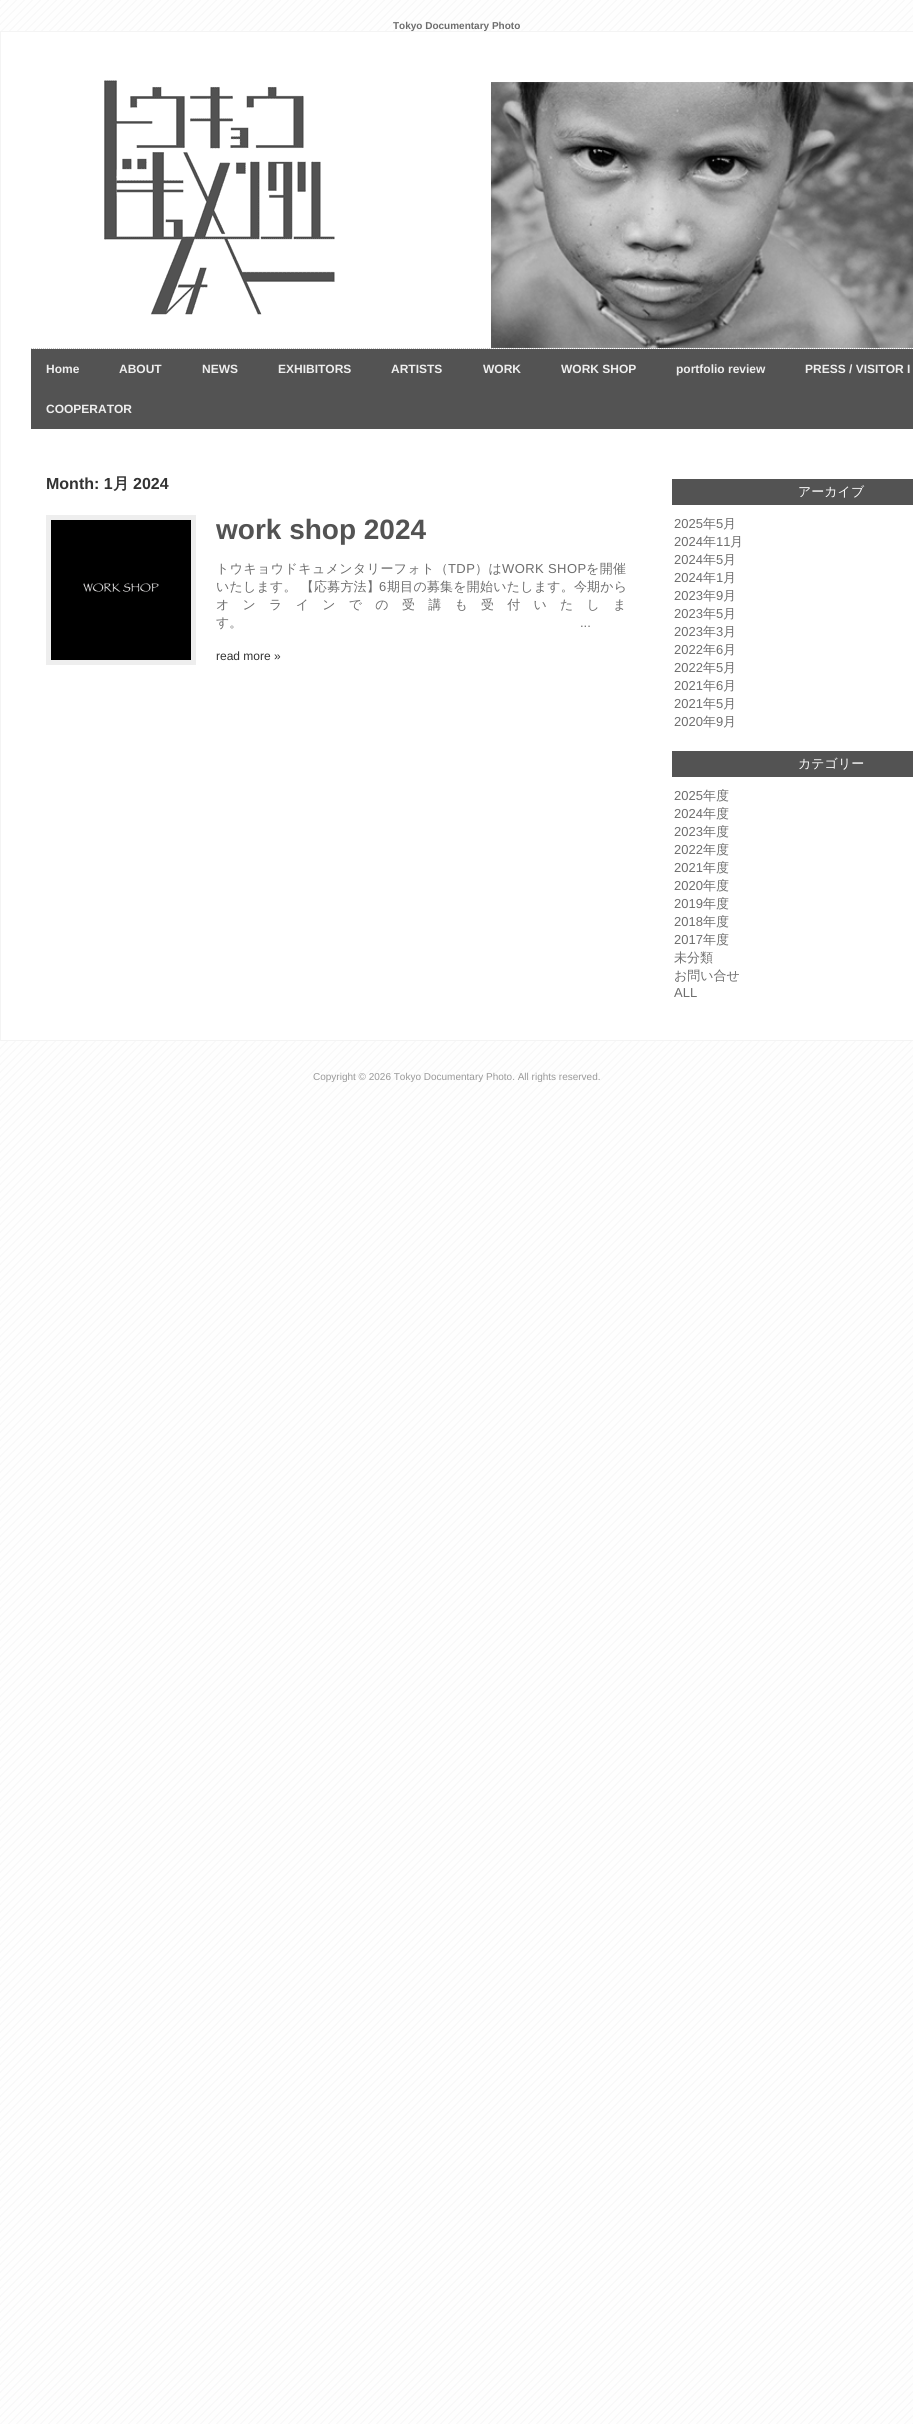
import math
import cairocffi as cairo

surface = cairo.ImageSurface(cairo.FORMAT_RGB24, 913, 2424)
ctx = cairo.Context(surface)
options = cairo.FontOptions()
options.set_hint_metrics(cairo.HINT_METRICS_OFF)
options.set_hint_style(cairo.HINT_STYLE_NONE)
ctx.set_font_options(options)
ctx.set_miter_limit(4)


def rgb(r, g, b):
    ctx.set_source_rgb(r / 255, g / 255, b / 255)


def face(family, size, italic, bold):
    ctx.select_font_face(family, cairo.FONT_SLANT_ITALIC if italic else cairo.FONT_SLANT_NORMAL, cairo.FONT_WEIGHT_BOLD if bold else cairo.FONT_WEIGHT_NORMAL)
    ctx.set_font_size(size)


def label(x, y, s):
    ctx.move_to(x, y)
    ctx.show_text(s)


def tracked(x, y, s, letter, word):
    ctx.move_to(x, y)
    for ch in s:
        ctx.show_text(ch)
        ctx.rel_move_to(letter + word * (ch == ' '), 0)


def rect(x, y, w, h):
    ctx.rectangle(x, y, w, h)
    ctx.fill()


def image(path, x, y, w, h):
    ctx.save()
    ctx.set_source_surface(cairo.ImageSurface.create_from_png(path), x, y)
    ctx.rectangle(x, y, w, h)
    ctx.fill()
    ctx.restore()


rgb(255, 255, 255)
ctx.paint()
image('image0.png', 0, 0, 913, 2424)
rgb(255, 255, 255)
ctx.rectangle(0.5, 31.5, 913, 1009)
ctx.fill_preserve()
rgb(244, 244, 244)
ctx.set_line_width(1)
ctx.stroke()
face('Liberation Sans', 10, 0, 1)
rgb(109, 109, 109)
label(393, 29, 'Tokyo Documentary Photo')
ctx.new_path()
ctx.move_to(31, 348.5)
ctx.line_to(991, 348.5)
rgb(199, 199, 199)
ctx.set_dash([1, 1])
ctx.stroke()
image('image1.png', 104, 80, 231, 235)
image('image2.png', 491, 82, 422, 266)
rgb(83, 83, 83)
rect(31, 349, 882, 80)
face('Liberation Sans', 12, 0, 1)
rgb(238, 238, 238)
label(46, 373, 'Home')
label(119, 373, 'ABOUT')
label(202, 373, 'NEWS')
label(278, 373, 'EXHIBITORS')
label(391, 373, 'ARTISTS')
label(483, 373, 'WORK')
label(561, 373, 'WORK SHOP')
label(676, 373, 'portfolio review')
label(805, 373, 'PRESS / VISITOR I')
label(46, 413, 'COOPERATOR')
face('Liberation Sans', 16, 0, 1)
rgb(51, 51, 51)
label(46, 489, 'Month: 1')
face('WenQuanYi Zen Hei', 16, 0, 1)
label(113, 489, '月')
face('Liberation Sans', 16, 0, 1)
label(133, 489, '2024')
rgb(238, 238, 238)
rect(46, 515, 150, 150)
image('image3.png', 51, 520, 140, 140)
face('Liberation Sans', 28, 0, 1)
rgb(83, 83, 83)
label(216, 539, 'work shop 2024')
face('WenQuanYi Zen Hei Medium', 13, 0, 0)
rgb(109, 109, 109)
tracked(216, 573, 'トウキョウドキュメンタリーフォト（', 0.4, 0)
face('Liberation Sans', 13, 0, 0)
tracked(448, 573, 'TDP', 0.4, 0)
face('WenQuanYi Zen Hei Medium', 13, 0, 0)
tracked(475, 573, '）は', 0.4, 0)
face('Liberation Sans', 13, 0, 0)
tracked(502, 573, 'WORK SHOP', 0.4, 0)
face('WenQuanYi Zen Hei Medium', 13, 0, 0)
tracked(586, 573, 'を開催', 0.4, 0)
tracked(216, 591, 'いたします。 【応募方法】', 0.2, 0)
face('Liberation Sans', 13, 0, 0)
tracked(379, 591, '6', 0.2, 0)
face('WenQuanYi Zen Hei Medium', 13, 0, 0)
tracked(387, 591, '期目の募集を開始いたします。今期から', 0.2, 0)
tracked(216, 609, 'オンラインでの受講も受付いたしま', 13.25, 0)
label(216, 627, 'す。')
face('Liberation Sans', 13, 0, 0)
label(580, 627, '...')
face('Liberation Sans', 12, 0, 0)
rgb(51, 51, 51)
label(216, 660, 'read more »')
rgb(83, 83, 83)
rect(672, 479, 241, 26)
face('WenQuanYi Zen Hei Medium', 13, 0, 0)
rgb(255, 255, 255)
label(798, 496, 'アーカイブ')
face('Liberation Sans', 13, 0, 0)
rgb(109, 109, 109)
label(674, 528, '2025')
face('WenQuanYi Zen Hei Medium', 13, 0, 0)
label(703, 528, '年')
face('Liberation Sans', 13, 0, 0)
label(716, 528, '5')
face('WenQuanYi Zen Hei Medium', 13, 0, 0)
label(723, 528, '月')
face('Liberation Sans', 13, 0, 0)
label(674, 546, '2024')
face('WenQuanYi Zen Hei Medium', 13, 0, 0)
label(703, 546, '年')
face('Liberation Sans', 13, 0, 0)
label(716, 546, '11')
face('WenQuanYi Zen Hei Medium', 13, 0, 0)
label(730, 546, '月')
face('Liberation Sans', 13, 0, 0)
label(674, 564, '2024')
face('WenQuanYi Zen Hei Medium', 13, 0, 0)
label(703, 564, '年')
face('Liberation Sans', 13, 0, 0)
label(716, 564, '5')
face('WenQuanYi Zen Hei Medium', 13, 0, 0)
label(723, 564, '月')
face('Liberation Sans', 13, 0, 0)
label(674, 582, '2024')
face('WenQuanYi Zen Hei Medium', 13, 0, 0)
label(703, 582, '年')
face('Liberation Sans', 13, 0, 0)
label(716, 582, '1')
face('WenQuanYi Zen Hei Medium', 13, 0, 0)
label(723, 582, '月')
face('Liberation Sans', 13, 0, 0)
label(674, 600, '2023')
face('WenQuanYi Zen Hei Medium', 13, 0, 0)
label(703, 600, '年')
face('Liberation Sans', 13, 0, 0)
label(716, 600, '9')
face('WenQuanYi Zen Hei Medium', 13, 0, 0)
label(723, 600, '月')
face('Liberation Sans', 13, 0, 0)
label(674, 618, '2023')
face('WenQuanYi Zen Hei Medium', 13, 0, 0)
label(703, 618, '年')
face('Liberation Sans', 13, 0, 0)
label(716, 618, '5')
face('WenQuanYi Zen Hei Medium', 13, 0, 0)
label(723, 618, '月')
face('Liberation Sans', 13, 0, 0)
label(674, 636, '2023')
face('WenQuanYi Zen Hei Medium', 13, 0, 0)
label(703, 636, '年')
face('Liberation Sans', 13, 0, 0)
label(716, 636, '3')
face('WenQuanYi Zen Hei Medium', 13, 0, 0)
label(723, 636, '月')
face('Liberation Sans', 13, 0, 0)
label(674, 654, '2022')
face('WenQuanYi Zen Hei Medium', 13, 0, 0)
label(703, 654, '年')
face('Liberation Sans', 13, 0, 0)
label(716, 654, '6')
face('WenQuanYi Zen Hei Medium', 13, 0, 0)
label(723, 654, '月')
face('Liberation Sans', 13, 0, 0)
label(674, 672, '2022')
face('WenQuanYi Zen Hei Medium', 13, 0, 0)
label(703, 672, '年')
face('Liberation Sans', 13, 0, 0)
label(716, 672, '5')
face('WenQuanYi Zen Hei Medium', 13, 0, 0)
label(723, 672, '月')
face('Liberation Sans', 13, 0, 0)
label(674, 690, '2021')
face('WenQuanYi Zen Hei Medium', 13, 0, 0)
label(703, 690, '年')
face('Liberation Sans', 13, 0, 0)
label(716, 690, '6')
face('WenQuanYi Zen Hei Medium', 13, 0, 0)
label(723, 690, '月')
face('Liberation Sans', 13, 0, 0)
label(674, 708, '2021')
face('WenQuanYi Zen Hei Medium', 13, 0, 0)
label(703, 708, '年')
face('Liberation Sans', 13, 0, 0)
label(716, 708, '5')
face('WenQuanYi Zen Hei Medium', 13, 0, 0)
label(723, 708, '月')
face('Liberation Sans', 13, 0, 0)
label(674, 726, '2020')
face('WenQuanYi Zen Hei Medium', 13, 0, 0)
label(703, 726, '年')
face('Liberation Sans', 13, 0, 0)
label(716, 726, '9')
face('WenQuanYi Zen Hei Medium', 13, 0, 0)
label(723, 726, '月')
rgb(83, 83, 83)
rect(672, 751, 241, 26)
rgb(255, 255, 255)
label(798, 768, 'カテゴリー')
face('Liberation Sans', 13, 0, 0)
rgb(109, 109, 109)
label(674, 800, '2025')
face('WenQuanYi Zen Hei Medium', 13, 0, 0)
label(703, 800, '年度')
face('Liberation Sans', 13, 0, 0)
label(674, 818, '2024')
face('WenQuanYi Zen Hei Medium', 13, 0, 0)
label(703, 818, '年度')
face('Liberation Sans', 13, 0, 0)
label(674, 836, '2023')
face('WenQuanYi Zen Hei Medium', 13, 0, 0)
label(703, 836, '年度')
face('Liberation Sans', 13, 0, 0)
label(674, 854, '2022')
face('WenQuanYi Zen Hei Medium', 13, 0, 0)
label(703, 854, '年度')
face('Liberation Sans', 13, 0, 0)
label(674, 872, '2021')
face('WenQuanYi Zen Hei Medium', 13, 0, 0)
label(703, 872, '年度')
face('Liberation Sans', 13, 0, 0)
label(674, 890, '2020')
face('WenQuanYi Zen Hei Medium', 13, 0, 0)
label(703, 890, '年度')
face('Liberation Sans', 13, 0, 0)
label(674, 908, '2019')
face('WenQuanYi Zen Hei Medium', 13, 0, 0)
label(703, 908, '年度')
face('Liberation Sans', 13, 0, 0)
label(674, 926, '2018')
face('WenQuanYi Zen Hei Medium', 13, 0, 0)
label(703, 926, '年度')
face('Liberation Sans', 13, 0, 0)
label(674, 944, '2017')
face('WenQuanYi Zen Hei Medium', 13, 0, 0)
label(703, 944, '年度')
label(674, 962, '未分類')
label(674, 980, 'お問い合せ')
face('Liberation Sans', 13, 0, 0)
label(674, 997, 'ALL')
face('Liberation Sans', 10, 0, 0)
rgb(153, 153, 153)
label(313, 1080, 'Copyright © 2026 Tokyo Documentary Photo. All rights reserved.')
surface.write_to_png('render.png')
